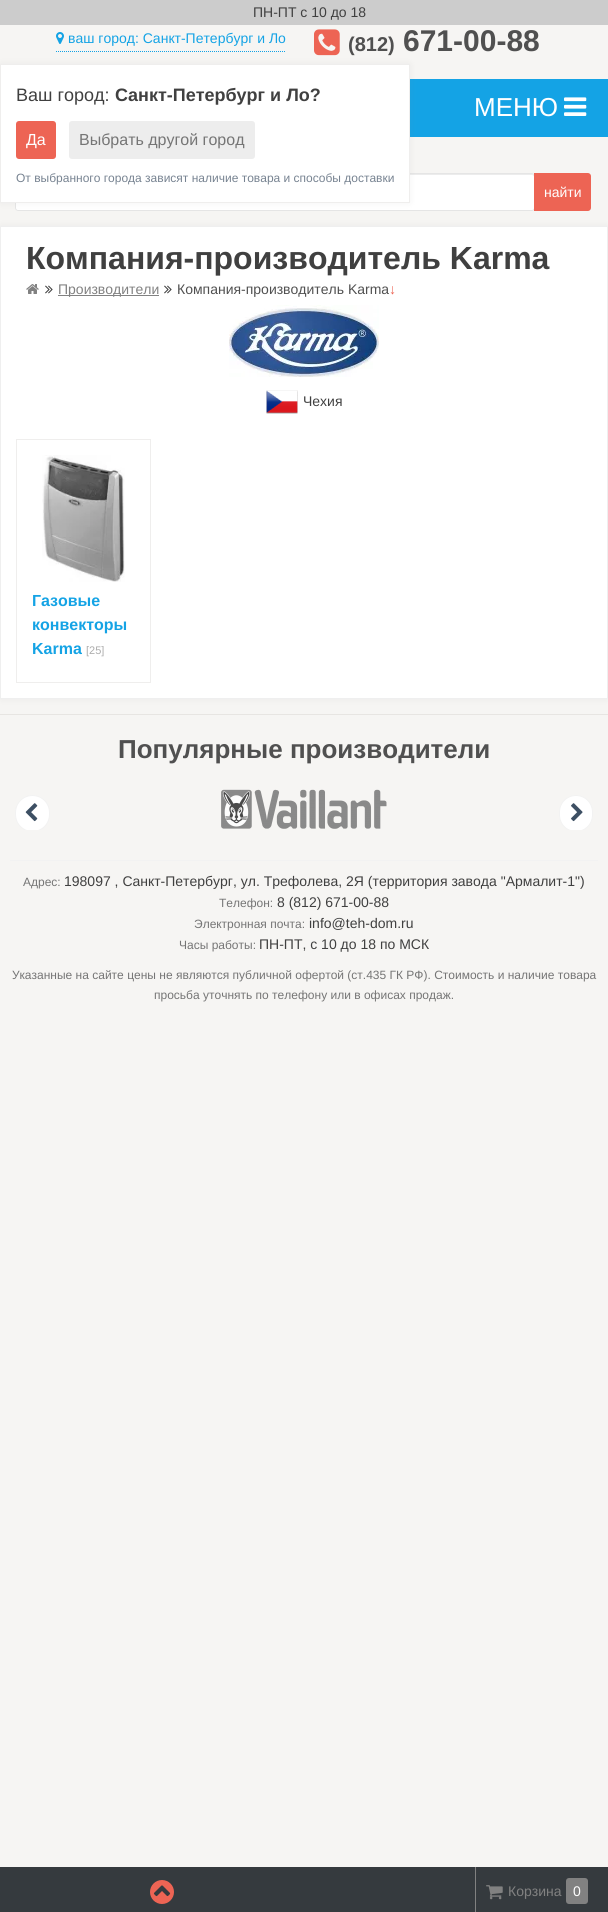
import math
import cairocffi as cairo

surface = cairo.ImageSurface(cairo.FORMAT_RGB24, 608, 1912)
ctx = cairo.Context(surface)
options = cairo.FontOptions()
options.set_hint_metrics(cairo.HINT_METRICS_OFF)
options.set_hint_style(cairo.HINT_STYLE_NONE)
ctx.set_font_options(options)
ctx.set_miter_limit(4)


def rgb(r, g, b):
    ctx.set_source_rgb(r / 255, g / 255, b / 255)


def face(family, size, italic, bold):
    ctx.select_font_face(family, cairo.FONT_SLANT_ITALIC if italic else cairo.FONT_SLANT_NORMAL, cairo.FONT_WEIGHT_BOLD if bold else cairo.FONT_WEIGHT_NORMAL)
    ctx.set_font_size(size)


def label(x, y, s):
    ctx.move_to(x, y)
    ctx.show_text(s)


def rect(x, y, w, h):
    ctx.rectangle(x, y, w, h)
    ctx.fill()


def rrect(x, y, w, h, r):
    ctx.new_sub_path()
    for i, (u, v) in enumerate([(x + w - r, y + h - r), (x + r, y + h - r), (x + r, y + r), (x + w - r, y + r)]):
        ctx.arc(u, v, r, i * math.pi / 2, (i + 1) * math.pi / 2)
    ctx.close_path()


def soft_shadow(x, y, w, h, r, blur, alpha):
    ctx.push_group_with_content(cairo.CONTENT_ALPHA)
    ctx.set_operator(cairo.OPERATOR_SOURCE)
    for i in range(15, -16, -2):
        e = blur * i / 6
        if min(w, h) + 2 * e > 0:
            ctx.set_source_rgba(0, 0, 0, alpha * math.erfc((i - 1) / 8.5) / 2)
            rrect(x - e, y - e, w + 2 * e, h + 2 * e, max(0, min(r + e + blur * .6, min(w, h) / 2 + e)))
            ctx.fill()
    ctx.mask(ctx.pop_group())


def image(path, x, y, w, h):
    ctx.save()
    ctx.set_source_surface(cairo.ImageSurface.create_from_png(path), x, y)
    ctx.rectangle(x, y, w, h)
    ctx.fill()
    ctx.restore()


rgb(246, 245, 243)
ctx.paint()
rgb(204, 204, 204)
rect(0, 0, 608, 25)
face('Liberation Sans', 14, 0, 0)
rgb(64, 64, 64)
label(253, 17, 'ПН-ПТ с 10 до 18')
ctx.new_path()
ctx.move_to(56, 51.5)
ctx.line_to(286, 51.5)
rgb(20, 163, 229)
ctx.set_line_width(1)
ctx.set_dash([1, 1])
ctx.stroke()
image('image0.png', 56, 32, 8, 12)
label(68, 43, 'ваш город: Санкт-Петербург и Ло')
image('image1.png', 314, 29, 26, 27)
face('Liberation Sans', 20, 0, 1)
rgb(80, 80, 80)
label(348, 51, '(812)')
face('Liberation Sans', 30, 0, 1)
label(403, 51, '671-00-88')
rgb(20, 163, 229)
rect(410, 79, 198, 58)
face('Liberation Sans', 26, 0, 0)
rgb(255, 255, 255)
label(474, 116, 'МЕНЮ')
image('image2.png', 564, 97, 23, 19)
rrect(15, 173, 520, 38, 3)
ctx.fill()
rgb(236, 236, 236)
ctx.new_path()
ctx.move_to(18, 175)
ctx.line_to(532, 175)
ctx.curve_to(533, 175, 534, 176, 534, 177)
ctx.curve_to(534, 176, 534, 174, 532, 174)
ctx.line_to(18, 174)
ctx.line_to(16, 175)
ctx.line_to(16, 177)
ctx.curve_to(16, 176, 17, 175, 18, 175)
ctx.close_path()
ctx.fill()
rrect(15.5, 173.5, 519, 37, 2.5)
rgb(229, 229, 229)
ctx.set_dash([])
ctx.stroke()
rgb(144, 144, 144)
soft_shadow(0, 64, 410, 139, 0, 3.5, 0.1)
rgb(255, 255, 255)
ctx.rectangle(0.5, 64.5, 409, 138)
ctx.fill_preserve()
rgb(239, 238, 237)
ctx.stroke()
face('Liberation Sans', 18, 0, 0)
rgb(64, 64, 64)
label(16, 101, 'Ваш город:')
face('Liberation Sans', 18, 0, 1)
label(115, 101, 'Санкт-Петербург и Ло?')
rgb(237, 100, 84)
rrect(16, 121, 40, 38, 3)
ctx.fill()
face('Liberation Sans', 16, 0, 0)
rgb(255, 255, 255)
label(26, 145, 'Да')
rgb(237, 237, 237)
rrect(69, 121, 186, 38, 3)
ctx.fill()
rgb(117, 117, 117)
label(79, 145, 'Выбрать другой город')
face('Liberation Sans', 12, 0, 0)
rgb(119, 131, 145)
label(16, 182, 'От выбранного города зависят наличие товара и способы доставки')
rgb(237, 100, 84)
ctx.new_path()
ctx.move_to(534, 173)
ctx.line_to(588, 173)
ctx.curve_to(589.5, 173, 591, 174.5, 591, 176)
ctx.line_to(591, 208)
ctx.curve_to(591, 209.5, 589.5, 211, 588, 211)
ctx.line_to(534, 211)
ctx.close_path()
ctx.fill()
face('Liberation Sans', 14, 0, 0)
rgb(255, 255, 255)
label(544, 197, 'найти')
rgb(144, 144, 144)
soft_shadow(0, 226, 608, 473, 0, 3.5, 0.1)
rgb(255, 255, 255)
ctx.rectangle(0.5, 226.5, 607, 472)
ctx.fill_preserve()
rgb(239, 239, 239)
ctx.stroke()
face('Liberation Sans', 32, 0, 1)
rgb(64, 64, 64)
label(26, 269, 'Компания-производитель Karma')
image('image3.png', 26, 284, 13, 10)
image('image4.png', 45, 285, 8, 9)
rgb(129, 129, 129)
rect(58, 295, 101, 1)
face('Liberation Sans', 14, 0, 0)
label(58, 294, 'Производители')
image('image4.png', 164, 285, 8, 9)
rgb(80, 80, 80)
label(177, 294, 'Компания-производитель Karma')
rgb(237, 100, 84)
label(389, 294, '↓')
image('image5.png', 229, 305, 150, 72)
image('image6.png', 266, 390, 32, 24)
rgb(64, 64, 64)
label(303, 406, 'Чехия')
ctx.rectangle(16.5, 439.5, 134, 243)
rgb(239, 238, 237)
ctx.stroke()
image('image7.png', 42, 455, 83, 127)
face('Liberation Sans', 16, 0, 1)
rgb(20, 163, 229)
label(32, 606, 'Газовые')
label(32, 630, 'конвекторы')
label(32, 654, 'Karma')
face('Liberation Sans', 11, 0, 0)
rgb(172, 172, 172)
label(86, 654, '[25]')
rgb(231, 229, 226)
rect(0, 714, 608, 1)
face('Liberation Sans', 26, 0, 1)
rgb(80, 80, 80)
label(118, 758, 'Популярные производители')
image('image8.png', 221, 789, 166, 40)
ctx.save()
ctx.rectangle(0, 730, 608, 100)
ctx.clip()
rgb(255, 255, 255)
rrect(15.5, 795.5, 34, 36, 17)
ctx.fill_preserve()
rgb(242, 242, 242)
ctx.stroke()
ctx.restore()
image('image9.png', 25, 803, 13, 19)
ctx.save()
ctx.rectangle(0, 730, 608, 100)
ctx.clip()
rgb(255, 255, 255)
rrect(559.5, 795.5, 33, 36, 16.5)
ctx.fill_preserve()
rgb(242, 242, 242)
ctx.stroke()
ctx.restore()
image('image10.png', 571, 803, 12, 19)
rgb(242, 242, 242)
rect(10, 860, 588, 1)
face('Liberation Sans', 12, 0, 0)
rgb(117, 117, 117)
label(23, 886, 'Адрес:')
face('Liberation Sans', 14, 0, 0)
rgb(64, 64, 64)
label(64, 886, '198097 , Санкт-Петербург, ул. Трефолева, 2Я (территория завода "Армалит-1")')
face('Liberation Sans', 12, 0, 0)
rgb(117, 117, 117)
label(219, 907, 'Телефон:')
face('Liberation Sans', 14, 0, 0)
rgb(64, 64, 64)
label(277, 907, '8 (812) 671-00-88')
face('Liberation Sans', 12, 0, 0)
rgb(117, 117, 117)
label(194, 928, 'Электронная почта:')
face('Liberation Sans', 14, 0, 0)
rgb(64, 64, 64)
label(309, 928, 'info@teh-dom.ru')
face('Liberation Sans', 12, 0, 0)
rgb(117, 117, 117)
label(179, 949, 'Часы работы:')
face('Liberation Sans', 14, 0, 0)
rgb(64, 64, 64)
label(259, 949, 'ПН-ПТ, с 10 до 18 по МСК')
face('Liberation Sans', 12, 0, 0)
rgb(117, 117, 117)
label(12, 979, 'Указанные на сайте цены не являются публичной офертой (ст.435 ГК РФ). Стоимость и наличие товара')
label(154, 999, 'просьба уточнять по телефону или в офисах продаж.')
rgb(53, 58, 62)
rect(0, 1867, 608, 45)
image('image11.png', 150, 1880, 24, 24)
rgb(129, 129, 129)
rect(475, 1867, 1, 45)
image('image12.png', 486, 1885, 17, 15)
face('Liberation Sans', 14, 0, 0)
label(508, 1896, 'Корзина')
rrect(566, 1878, 22, 26, 3)
ctx.fill()
rgb(255, 255, 255)
label(573, 1896, '0')
surface.write_to_png('render.png')
